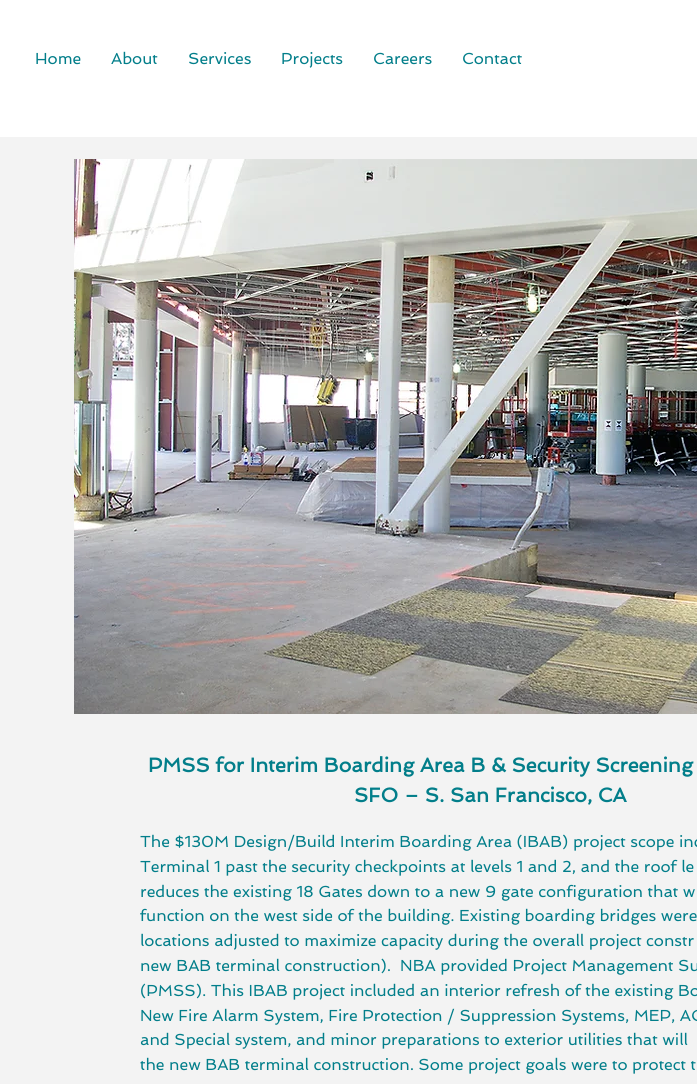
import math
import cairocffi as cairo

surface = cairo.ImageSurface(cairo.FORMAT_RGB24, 697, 1084)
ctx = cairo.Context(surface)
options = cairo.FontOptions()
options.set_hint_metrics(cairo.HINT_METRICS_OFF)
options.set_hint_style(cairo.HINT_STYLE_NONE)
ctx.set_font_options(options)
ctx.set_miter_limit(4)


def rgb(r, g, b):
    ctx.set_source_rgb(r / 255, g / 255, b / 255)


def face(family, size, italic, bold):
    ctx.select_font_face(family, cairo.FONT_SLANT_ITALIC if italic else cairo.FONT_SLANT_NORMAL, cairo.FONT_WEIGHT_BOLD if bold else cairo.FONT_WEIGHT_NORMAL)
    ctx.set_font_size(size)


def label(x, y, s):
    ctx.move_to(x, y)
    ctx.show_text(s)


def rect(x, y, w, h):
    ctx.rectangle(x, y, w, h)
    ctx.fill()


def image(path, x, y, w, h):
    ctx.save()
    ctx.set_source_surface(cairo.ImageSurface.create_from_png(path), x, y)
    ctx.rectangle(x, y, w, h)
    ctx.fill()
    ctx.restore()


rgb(255, 255, 255)
ctx.paint()
face('Spinnaker', 16, 0, 0)
rgb(2, 126, 138)
label(35, 64, 'Home')
label(111, 64, 'About')
label(188, 64, 'Services')
label(281, 64, 'Projects')
label(373, 64, 'Careers')
label(462, 64, 'Contact')
rgb(243, 243, 243)
rect(0, 137, 697, 947)
image('image0.png', 74, 159, 623, 555)
face('Spinnaker', 20, 0, 1)
rgb(2, 126, 138)
label(148, 772, 'PMSS for Interim Boarding Area B & Security Screening')
label(354, 802, 'SFO – S. San Francisco, CA')
face('Spinnaker', 16, 0, 0)
label(140, 847, 'The $130M Design/Build Interim Boarding Area (IBAB) project scope inc')
label(140, 872, 'Terminal 1 past the security checkpoints at levels 1 and 2, and the roof le')
label(140, 897, 'reduces the existing 18 Gates down to a new 9 gate configuration that w')
label(140, 921, 'function on the west side of the building. Existing boarding bridges were')
label(140, 946, 'locations adjusted to maximize capacity during the overall project constr')
label(140, 971, 'new BAB terminal construction).  NBA provided Project Management Su')
label(140, 996, '(PMSS). This IBAB project included an interior refresh of the existing Bo')
label(140, 1021, 'New Fire Alarm System, Fire Protection / Suppression Systems, MEP, AC')
label(140, 1045, 'and Special system, and minor preparations to exterior utilities that will')
label(140, 1070, 'the new BAB terminal construction. Some project goals were to protect t')
surface.write_to_png('render.png')
